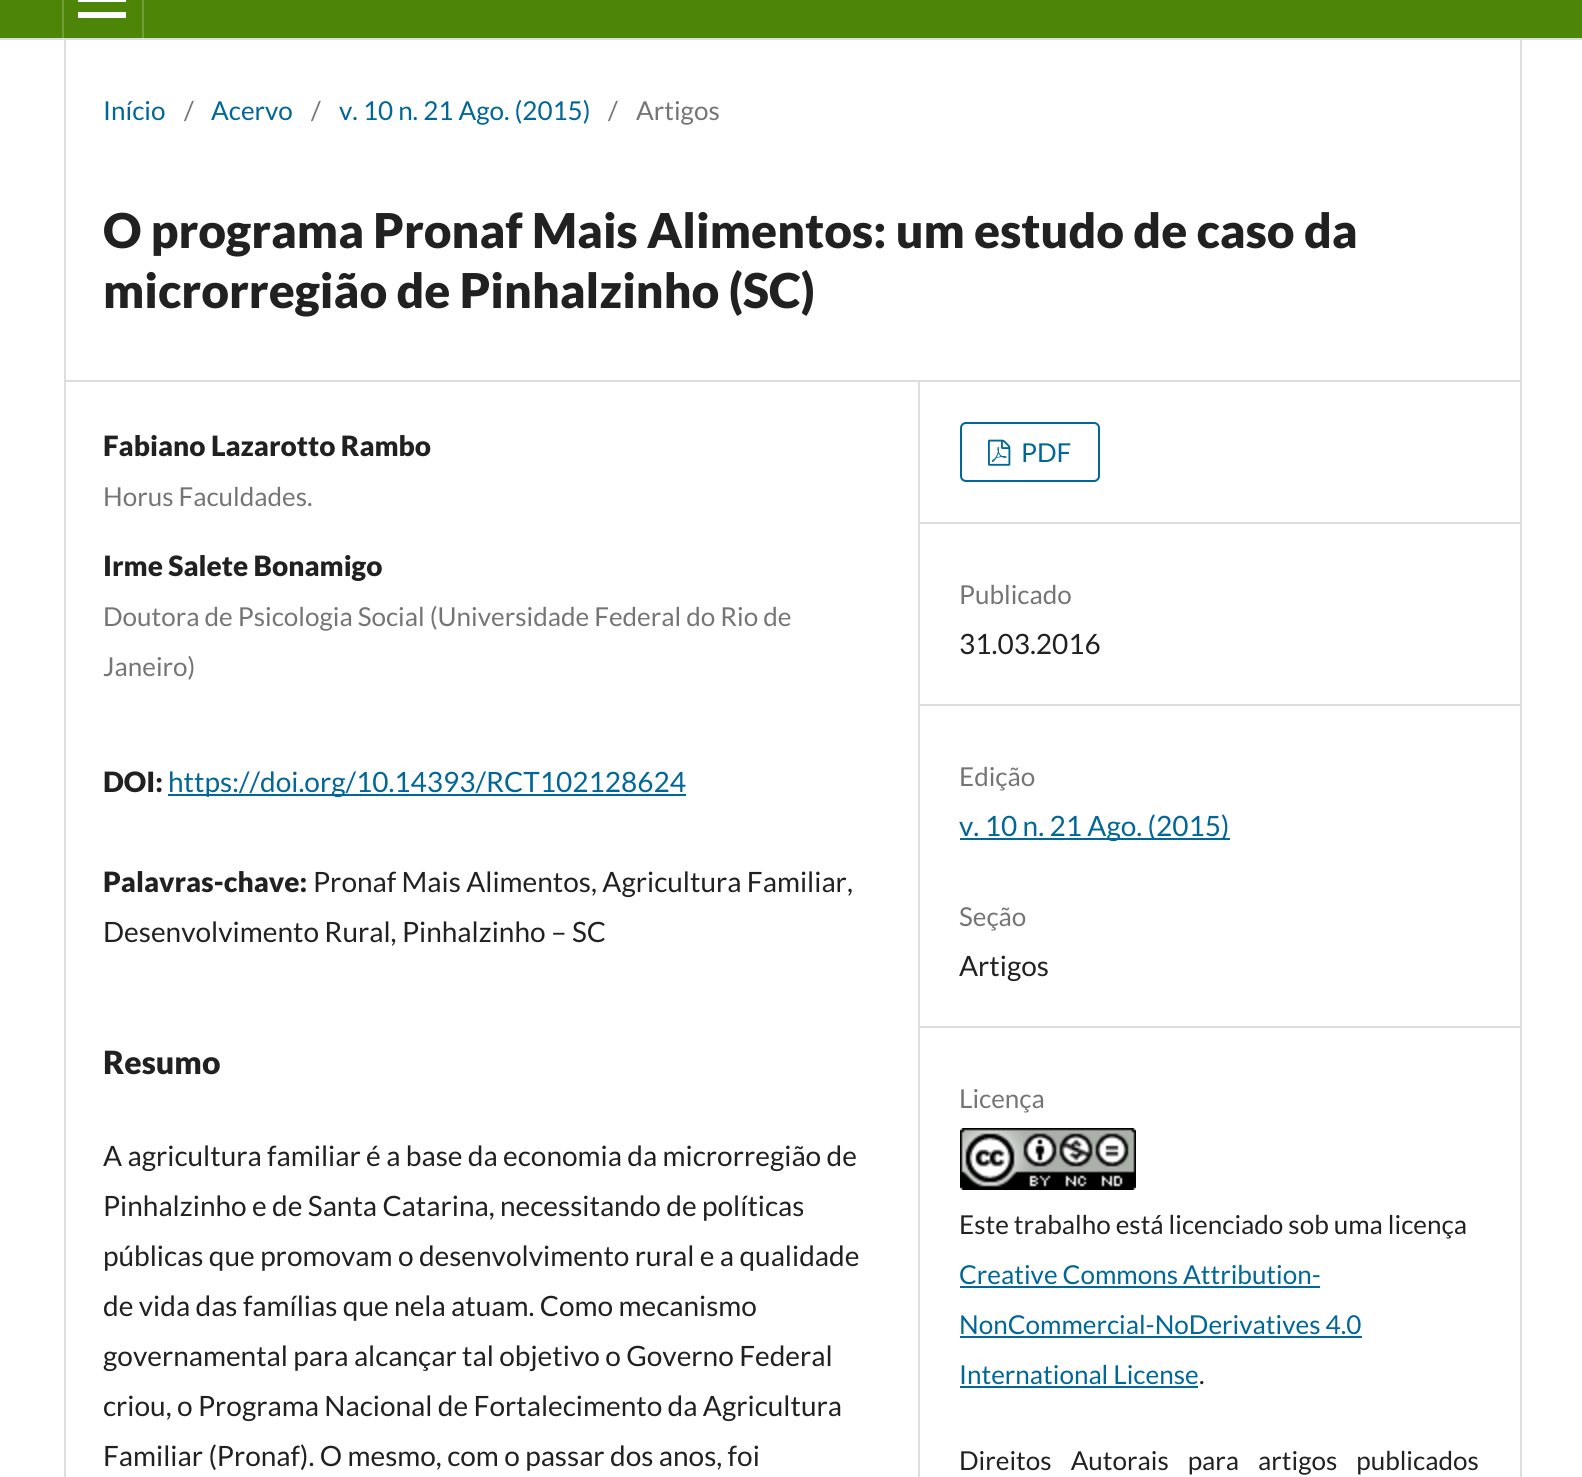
import math
import cairocffi as cairo

surface = cairo.ImageSurface(cairo.FORMAT_RGB24, 1582, 1477)
ctx = cairo.Context(surface)
options = cairo.FontOptions()
options.set_hint_metrics(cairo.HINT_METRICS_OFF)
options.set_hint_style(cairo.HINT_STYLE_NONE)
ctx.set_font_options(options)
ctx.set_miter_limit(4)


def rgb(r, g, b):
    ctx.set_source_rgb(r / 255, g / 255, b / 255)


def face(family, size, italic, bold):
    ctx.select_font_face(family, cairo.FONT_SLANT_ITALIC if italic else cairo.FONT_SLANT_NORMAL, cairo.FONT_WEIGHT_BOLD if bold else cairo.FONT_WEIGHT_NORMAL)
    ctx.set_font_size(size)


def label(x, y, s):
    ctx.move_to(x, y)
    ctx.show_text(s)


def tracked(x, y, s, letter, word):
    ctx.move_to(x, y)
    for ch in s:
        ctx.show_text(ch)
        ctx.rel_move_to(letter + word * (ch == ' '), 0)


def rect(x, y, w, h):
    ctx.rectangle(x, y, w, h)
    ctx.fill()


def rrect(x, y, w, h, r):
    ctx.new_sub_path()
    for i, (u, v) in enumerate([(x + w - r, y + h - r), (x + r, y + h - r), (x + r, y + r), (x + w - r, y + r)]):
        ctx.arc(u, v, r, i * math.pi / 2, (i + 1) * math.pi / 2)
    ctx.close_path()


def image(path, x, y, w, h):
    ctx.save()
    ctx.set_source_surface(cairo.ImageSurface.create_from_png(path), x, y)
    ctx.rectangle(x, y, w, h)
    ctx.fill()
    ctx.restore()


rgb(255, 255, 255)
ctx.paint()
rgb(76, 133, 7)
rect(0, 0, 1582, 38)
rgb(221, 221, 221)
rect(0, 38, 1582, 2)
rgb(112, 157, 57)
rect(62, 0, 2, 38)
rect(142, 0, 2, 38)
rgb(255, 255, 255)
rect(78, 12, 48, 6)
rect(78, 0, 48, 2)
rgb(221, 221, 221)
rect(64, 380, 1456, 2)
rect(64, 40, 2, 1437)
face('Lato', 26.05, 0, 0)
rgb(0, 103, 152)
label(103, 120, 'Início')
rgb(117, 117, 117)
label(184, 120, '/')
rgb(0, 103, 152)
label(211, 120, 'Acervo')
rgb(117, 117, 117)
label(311, 120, '/')
rgb(0, 103, 152)
label(339, 120, 'v. 10 n. 21 Ago. (2015)')
rgb(117, 117, 117)
label(608, 120, '/')
label(636, 120, 'Artigos')
face('Lato Black', 48, 0, 0)
rgb(33, 33, 33)
label(103, 248, 'O programa Pronaf Mais Alimentos: um estudo de caso da')
label(103, 308, 'microrregião de Pinhalzinho (SC)')
rgb(221, 221, 221)
rect(918, 382, 2, 1095)
face('Lato Black', 28, 0, 0)
rgb(33, 33, 33)
label(103, 456, 'Fabiano Lazarotto Rambo')
face('Lato', 26.05, 0, 0)
rgb(117, 117, 117)
label(103, 506, 'Horus Faculdades.')
face('Lato Black', 28, 0, 0)
rgb(33, 33, 33)
label(103, 576, 'Irme Salete Bonamigo')
face('Lato', 26.05, 0, 0)
rgb(117, 117, 117)
label(103, 626, 'Doutora de Psicologia Social (Universidade Federal do Rio de')
label(103, 676, 'Janeiro)')
face('Lato Black', 28, 0, 0)
rgb(33, 33, 33)
label(103, 792, 'DOI:')
rgb(0, 103, 152)
rect(168, 794, 518, 2)
face('Lato', 28, 0, 0)
label(168, 792, 'https://doi.org/10.14393/RCT102128624')
face('Lato Black', 28, 0, 0)
rgb(33, 33, 33)
label(103, 892, 'Palavras-chave:')
face('Lato', 28, 0, 0)
label(313, 892, 'Pronaf Mais Alimentos, Agricultura Familiar,')
label(103, 942, 'Desenvolvimento Rural, Pinhalzinho – SC')
face('Lato Black', 32, 0, 0)
label(103, 1074, 'Resumo')
face('Lato', 28, 0, 0)
label(103, 1166, 'A agricultura familiar é a base da economia da microrregião de')
label(103, 1216, 'Pinhalzinho e de Santa Catarina, necessitando de políticas')
label(103, 1266, 'públicas que promovam o desenvolvimento rural e a qualidade')
label(103, 1316, 'de vida das famílias que nela atuam. Como mecanismo')
label(103, 1366, 'governamental para alcançar tal objetivo o Governo Federal')
label(103, 1416, 'criou, o Programa Nacional de Fortalecimento da Agricultura')
label(103, 1466, 'Familiar (Pronaf). O mesmo, com o passar dos anos, foi')
rgb(221, 221, 221)
rect(920, 522, 600, 2)
rrect(961, 423, 138, 58, 5)
rgb(0, 103, 152)
ctx.stroke()
image('image0.png', 988, 439, 23, 27)
face('Lato', 26.05, 0, 0)
label(1021, 462, 'PDF')
rgb(221, 221, 221)
rect(920, 704, 600, 2)
rgb(117, 117, 117)
label(959, 604, 'Publicado')
face('Lato', 28, 0, 0)
rgb(33, 33, 33)
label(959, 654, '31.03.2016')
rgb(221, 221, 221)
rect(920, 1026, 600, 2)
face('Lato', 26.05, 0, 0)
rgb(117, 117, 117)
label(959, 786, 'Edição')
rgb(0, 103, 152)
rect(960, 838, 270, 2)
face('Lato', 28, 0, 0)
label(959, 836, 'v. 10 n. 21 Ago. (2015)')
face('Lato', 26.05, 0, 0)
rgb(117, 117, 117)
label(959, 926, 'Seção')
face('Lato', 28, 0, 0)
rgb(33, 33, 33)
label(959, 976, 'Artigos')
face('Lato', 26.05, 0, 0)
rgb(117, 117, 117)
label(959, 1108, 'Licença')
image('image1.png', 960, 1128, 176, 62)
rgb(33, 33, 33)
label(959, 1234, 'Este trabalho está licenciado sob uma licença')
rgb(0, 103, 152)
label(959, 1284, 'Creative Commons Attribution-')
rect(960, 1286, 360, 2)
label(959, 1334, 'NonCommercial-NoDerivatives 4.0')
rect(960, 1336, 402, 2)
label(959, 1384, 'International License')
rect(960, 1386, 238, 2)
rgb(33, 33, 33)
label(1199, 1384, '.')
tracked(959, 1470, 'Direitos Autorais para artigos publicados', 0, 14)
rgb(221, 221, 221)
rect(1520, 40, 2, 1437)
surface.write_to_png('render.png')
